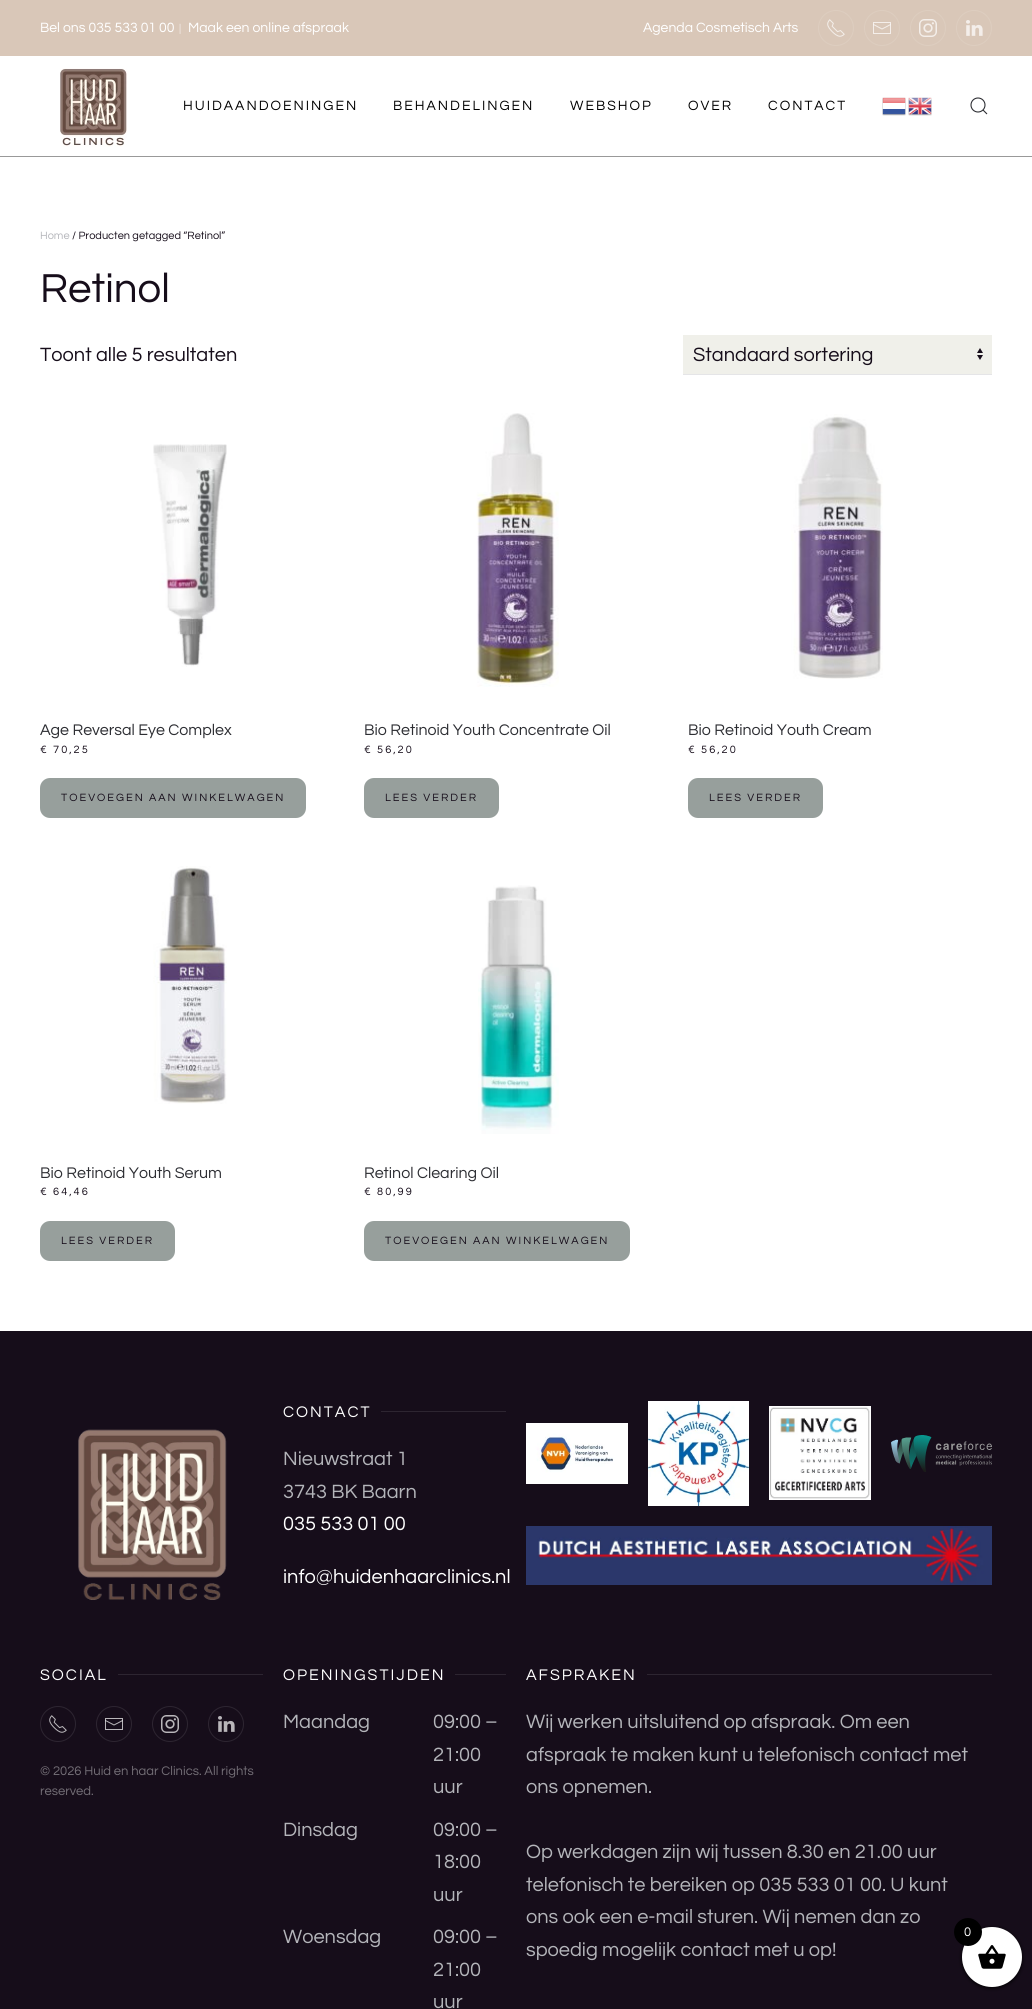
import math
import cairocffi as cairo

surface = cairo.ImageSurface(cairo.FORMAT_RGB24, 1032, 2009)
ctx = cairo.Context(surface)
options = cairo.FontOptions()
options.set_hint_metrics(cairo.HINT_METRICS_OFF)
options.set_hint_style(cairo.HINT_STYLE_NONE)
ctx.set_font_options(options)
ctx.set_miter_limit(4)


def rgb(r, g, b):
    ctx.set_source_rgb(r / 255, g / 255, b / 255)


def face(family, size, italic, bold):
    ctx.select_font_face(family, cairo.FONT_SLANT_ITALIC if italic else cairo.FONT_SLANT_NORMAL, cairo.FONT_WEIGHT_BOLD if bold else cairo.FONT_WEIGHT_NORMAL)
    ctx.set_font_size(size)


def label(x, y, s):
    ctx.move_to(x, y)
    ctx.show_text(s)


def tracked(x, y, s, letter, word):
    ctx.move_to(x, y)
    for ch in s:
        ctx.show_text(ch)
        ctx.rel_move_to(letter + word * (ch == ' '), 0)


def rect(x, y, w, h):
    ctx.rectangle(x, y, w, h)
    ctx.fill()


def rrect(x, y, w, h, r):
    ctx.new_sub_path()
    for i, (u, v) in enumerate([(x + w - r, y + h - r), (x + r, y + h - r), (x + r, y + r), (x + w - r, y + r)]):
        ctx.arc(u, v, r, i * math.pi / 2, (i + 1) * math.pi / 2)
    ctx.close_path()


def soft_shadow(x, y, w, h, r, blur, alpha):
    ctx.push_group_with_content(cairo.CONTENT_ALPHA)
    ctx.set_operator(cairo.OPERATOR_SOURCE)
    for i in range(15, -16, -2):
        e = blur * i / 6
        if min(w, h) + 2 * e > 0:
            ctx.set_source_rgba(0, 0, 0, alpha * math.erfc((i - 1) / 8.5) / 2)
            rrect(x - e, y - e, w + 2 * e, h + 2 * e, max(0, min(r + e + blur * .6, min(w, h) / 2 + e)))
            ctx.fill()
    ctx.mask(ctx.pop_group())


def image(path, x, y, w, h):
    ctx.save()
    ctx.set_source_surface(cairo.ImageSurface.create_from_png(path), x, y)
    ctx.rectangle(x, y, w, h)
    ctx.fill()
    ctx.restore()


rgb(255, 255, 255)
ctx.paint()
rgb(217, 199, 184)
rect(0, 0, 1032, 56)
face('Questrial', 14, 0, 0)
rgb(255, 255, 255)
label(40, 32, 'Bel ons 035 533 01 00')
face('Questrial', 11, 0, 0)
rgb(244, 238, 234)
label(179, 32, '|')
face('Questrial', 14, 0, 0)
rgb(255, 255, 255)
label(188, 32, 'Maak een online afspraak')
label(643, 32, 'Agenda Cosmetisch Arts')
ctx.new_path()
ctx.arc(836, 28, 17.5, 0, 2 * math.pi)
rgb(221, 205, 191)
ctx.set_line_width(1)
ctx.stroke()
image('image0.png', 827, 19, 18, 18)
ctx.arc(882, 28, 17.5, 0, 2 * math.pi)
ctx.stroke()
image('image1.png', 873, 22, 18, 12)
ctx.arc(928, 28, 17.5, 0, 2 * math.pi)
ctx.stroke()
image('image2.png', 919, 19, 18, 18)
ctx.arc(974, 28, 17.5, 0, 2 * math.pi)
ctx.stroke()
image('image3.png', 966, 20, 17, 16)
rgb(153, 153, 153)
rect(0, 156, 1032, 1)
image('image4.png', 60, 68, 67, 79)
rgb(0, 0, 0)
tracked(183, 110, 'HUIDAANDOENINGEN', 2, 0)
tracked(393, 110, 'BEHANDELINGEN', 2, 0)
tracked(570, 110, 'WEBSHOP', 2, 0)
tracked(688, 110, 'OVER', 2, 0)
tracked(768, 110, 'CONTACT', 2, 0)
image('image5.png', 882, 97, 24, 19)
image('image6.png', 908, 97, 24, 19)
ctx.arc(978, 105, 7, 0, 2 * math.pi)
rgb(45, 46, 51)
ctx.set_line_width(1.1)
ctx.stroke()
ctx.new_path()
ctx.move_to(983, 110)
ctx.line_to(987, 114)
ctx.close_path()
ctx.stroke()
face('Questrial', 11, 0, 0)
rgb(180, 181, 186)
label(40, 239, 'Home')
rgb(22, 13, 26)
label(72, 239, '/ Producten getagged “Retinol”')
face('Questrial', 42, 0, 0)
label(40, 302, 'Retinol')
face('Questrial', 20, 0, 0)
label(40, 361, 'Toont alle 5 resultaten')
rgb(240, 240, 234)
rect(683, 335, 309, 39)
image('image7.png', 977, 348, 6, 12)
rgb(229, 229, 231)
rect(683, 374, 309, 1)
rgb(22, 13, 26)
label(693, 361, 'Standaard sortering')
image('image8.png', 153, 444, 74, 223)
face('Questrial', 16, 0, 0)
rgb(45, 46, 51)
label(40, 735, 'Age Reversal Eye Complex')
face('Questrial', 11, 0, 0)
rgb(22, 13, 26)
tracked(40, 753, '€ 70,25', 2, 0)
rgb(151, 159, 156)
rrect(40, 778, 266, 40, 10)
ctx.fill()
rgb(22, 13, 26)
tracked(61, 801, 'TOEVOEGEN AAN WINKELWAGEN', 2, 0)
image('image9.png', 476, 413, 83, 274)
face('Questrial', 16, 0, 0)
rgb(45, 46, 51)
label(364, 735, 'Bio Retinoid Youth Concentrate Oil')
face('Questrial', 11, 0, 0)
rgb(22, 13, 26)
tracked(364, 753, '€ 56,20', 2, 0)
rgb(151, 159, 156)
rrect(364, 778, 135, 40, 10)
ctx.fill()
rgb(22, 13, 26)
tracked(385, 801, 'LEES VERDER', 2, 0)
image('image10.png', 791, 414, 92, 265)
face('Questrial', 16, 0, 0)
rgb(45, 46, 51)
label(688, 735, 'Bio Retinoid Youth Cream')
face('Questrial', 11, 0, 0)
rgb(22, 13, 26)
tracked(688, 753, '€ 56,20', 2, 0)
rgb(151, 159, 156)
rrect(688, 778, 135, 40, 10)
ctx.fill()
rgb(22, 13, 26)
tracked(709, 801, 'LEES VERDER', 2, 0)
image('image11.png', 153, 866, 74, 238)
face('Questrial', 16, 0, 0)
rgb(45, 46, 51)
label(40, 1178, 'Bio Retinoid Youth Serum')
face('Questrial', 11, 0, 0)
rgb(22, 13, 26)
tracked(40, 1195, '€ 64,46', 2, 0)
rgb(151, 159, 156)
rrect(40, 1221, 135, 40, 10)
ctx.fill()
rgb(22, 13, 26)
tracked(61, 1244, 'LEES VERDER', 2, 0)
image('image12.png', 478, 885, 81, 249)
face('Questrial', 16, 0, 0)
rgb(45, 46, 51)
label(364, 1178, 'Retinol Clearing Oil')
face('Questrial', 11, 0, 0)
rgb(22, 13, 26)
tracked(364, 1195, '€ 80,99', 2, 0)
rgb(151, 159, 156)
rrect(364, 1221, 266, 40, 10)
ctx.fill()
rgb(22, 13, 26)
tracked(385, 1244, 'TOEVOEGEN AAN WINKELWAGEN', 2, 0)
rect(0, 1331, 1032, 678)
image('image13.png', 78, 1429, 149, 171)
face('Questrial', 16, 0, 0)
rgb(255, 255, 255)
tracked(283, 1417, 'CONTACT', 2, 0)
rgb(45, 37, 49)
rect(381, 1411, 125, 1)
face('Questrial', 20, 0, 0)
rgb(180, 181, 186)
label(283, 1465, 'Nieuwstraat 1')
label(283, 1498, '3743 BK Baarn')
rgb(255, 255, 255)
label(283, 1530, '035 533 01 00')
label(283, 1583, 'info@huidenhaarclinics.nl')
image('image14.png', 526, 1423, 102, 61)
image('image15.png', 648, 1401, 101, 105)
image('image16.png', 769, 1406, 102, 94)
image('image17.png', 891, 1435, 101, 37)
image('image18.png', 526, 1526, 466, 59)
face('Questrial', 16, 0, 0)
tracked(40, 1680, 'SOCIAL', 2, 0)
rgb(45, 37, 49)
rect(118, 1674, 145, 1)
ctx.new_path()
ctx.arc(58, 1724, 17.5, 0, 2 * math.pi)
ctx.set_line_width(1)
ctx.stroke()
image('image19.png', 49, 1715, 18, 18)
ctx.arc(114, 1724, 17.5, 0, 2 * math.pi)
ctx.stroke()
image('image20.png', 105, 1718, 18, 12)
ctx.arc(170, 1724, 17.5, 0, 2 * math.pi)
ctx.stroke()
image('image21.png', 161, 1715, 18, 18)
ctx.arc(226, 1724, 17.5, 0, 2 * math.pi)
ctx.stroke()
image('image22.png', 218, 1716, 17, 16)
face('Questrial', 13, 0, 0)
rgb(115, 110, 118)
label(40, 1775, '© 2026 Huid en haar Clinics. All rights')
label(40, 1795, 'reserved.')
face('Questrial', 16, 0, 0)
rgb(255, 255, 255)
tracked(283, 1680, 'OPENINGSTIJDEN', 2, 0)
rgb(45, 37, 49)
rect(455, 1674, 51, 1)
face('Questrial', 20, 0, 0)
rgb(180, 181, 186)
label(283, 1728, 'Maandag')
label(433, 1728, '09:00 –')
label(433, 1761, '21:00')
label(433, 1793, 'uur')
label(283, 1836, 'Dinsdag')
label(433, 1836, '09:00 –')
label(433, 1868, '18:00')
label(433, 1901, 'uur')
label(283, 1943, 'Woensdag')
label(433, 1943, '09:00 –')
label(433, 1976, '21:00')
label(433, 2008, 'uur')
face('Questrial', 16, 0, 0)
rgb(255, 255, 255)
tracked(526, 1680, 'AFSPRAKEN', 2, 0)
rgb(45, 37, 49)
rect(647, 1674, 345, 1)
face('Questrial', 20, 0, 0)
rgb(180, 181, 186)
label(526, 1728, 'Wij werken uitsluitend op afspraak. Om een')
label(526, 1761, 'afspraak te maken kunt u telefonisch contact met')
label(526, 1793, 'ons opnemen.')
label(526, 1858, 'Op werkdagen zijn wij tussen 8.30 en 21.00 uur')
label(526, 1891, 'telefonisch te bereiken op 035 533 01 00. U kunt')
label(526, 1923, 'ons ook een e-mail sturen. Wij nemen dan zo')
label(526, 1956, 'spoedig mogelijk contact met u op!')
rgb(0, 0, 0)
soft_shadow(962, 1928, 60, 60, 30, 2, 1)
rgb(255, 255, 255)
ctx.arc(992, 1957, 30, 0, 2 * math.pi)
ctx.fill()
image('image23.png', 978, 1945, 28, 24)
rgb(0, 0, 0)
ctx.arc(968, 1932, 14, 0, 2 * math.pi)
ctx.fill()
face('Questrial', 13, 0, 0)
rgb(255, 255, 255)
label(964, 1936, '0')
surface.write_to_png('render.png')
